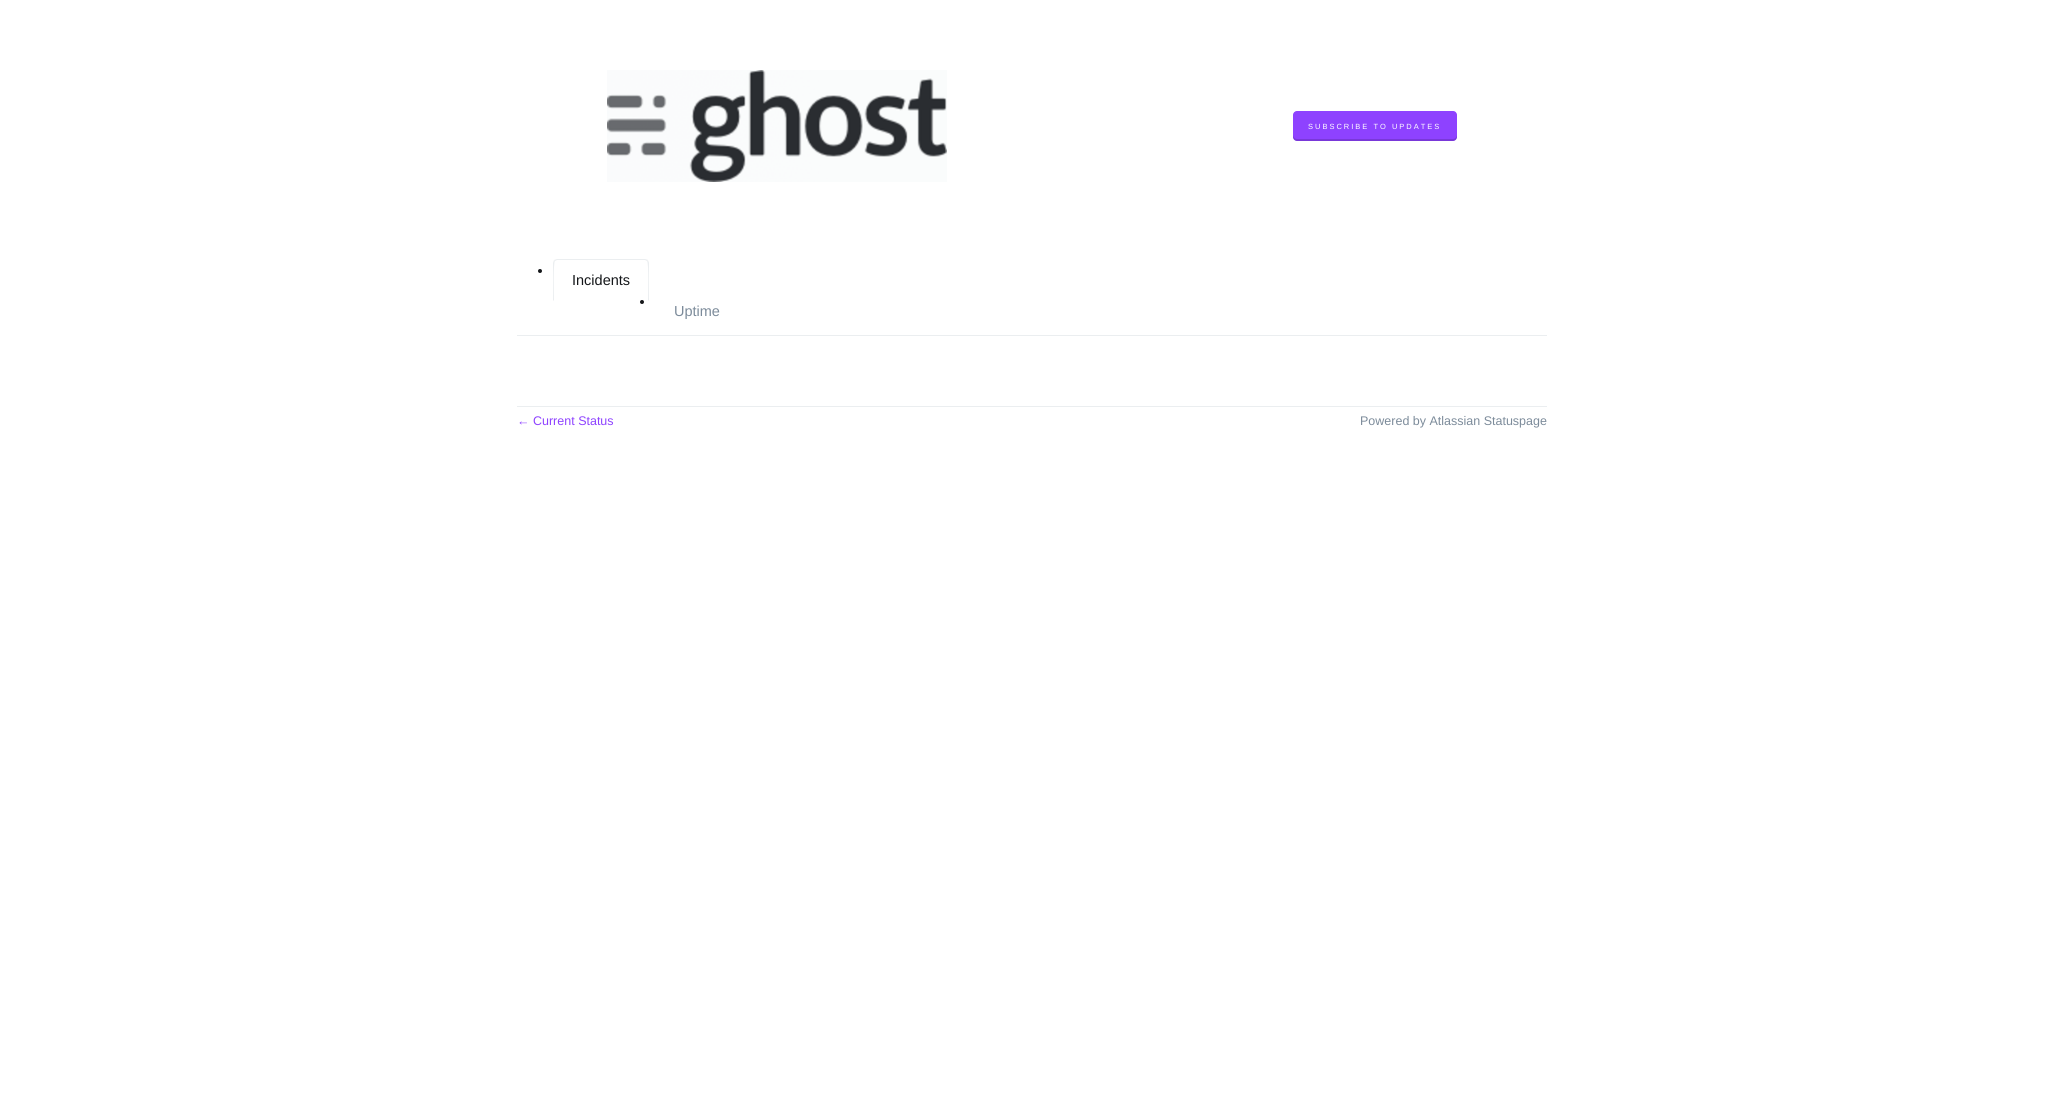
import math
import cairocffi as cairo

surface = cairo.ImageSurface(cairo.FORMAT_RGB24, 2063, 1099)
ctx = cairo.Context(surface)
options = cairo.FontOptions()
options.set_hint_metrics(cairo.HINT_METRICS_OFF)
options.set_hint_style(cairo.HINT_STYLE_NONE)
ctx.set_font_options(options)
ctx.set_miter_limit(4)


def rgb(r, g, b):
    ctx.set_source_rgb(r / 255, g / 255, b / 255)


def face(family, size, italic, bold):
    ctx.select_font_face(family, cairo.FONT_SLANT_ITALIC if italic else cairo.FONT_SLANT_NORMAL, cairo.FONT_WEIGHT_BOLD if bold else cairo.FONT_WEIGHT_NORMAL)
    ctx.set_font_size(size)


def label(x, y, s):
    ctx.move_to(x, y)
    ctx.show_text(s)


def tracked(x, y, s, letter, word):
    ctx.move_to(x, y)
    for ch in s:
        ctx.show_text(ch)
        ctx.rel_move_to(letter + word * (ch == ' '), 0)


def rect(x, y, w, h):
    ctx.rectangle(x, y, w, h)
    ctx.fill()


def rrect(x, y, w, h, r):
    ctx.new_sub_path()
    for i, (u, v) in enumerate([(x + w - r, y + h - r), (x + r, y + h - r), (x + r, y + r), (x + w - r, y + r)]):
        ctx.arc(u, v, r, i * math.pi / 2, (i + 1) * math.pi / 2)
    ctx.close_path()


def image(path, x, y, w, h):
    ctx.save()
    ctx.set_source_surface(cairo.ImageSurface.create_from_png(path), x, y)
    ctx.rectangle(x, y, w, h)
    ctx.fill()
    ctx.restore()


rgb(255, 255, 255)
ctx.paint()
image('image0.png', 607, 70, 340, 112)
rgb(142, 66, 255)
rrect(1293, 111, 164, 30, 4)
ctx.fill()
ctx.set_source_rgba(0, 0, 0, 0.15)
ctx.new_path()
ctx.move_to(1293, 135)
ctx.line_to(1293, 137)
ctx.curve_to(1293, 139, 1295, 141, 1297, 141)
ctx.line_to(1453, 141)
ctx.curve_to(1455, 141, 1457, 139, 1457, 137)
ctx.line_to(1457, 135)
ctx.curve_to(1457, 137, 1455, 139, 1453, 139)
ctx.line_to(1297, 139)
ctx.curve_to(1295, 139, 1293, 137, 1293, 135)
ctx.close_path()
ctx.fill()
face('Liberation Sans', 7.5, 0, 0)
rgb(255, 255, 255)
tracked(1308, 129, 'SUBSCRIBE TO UPDATES', 2, 0)
rgb(235, 238, 240)
rect(517, 335, 1030, 1)
rgb(21, 23, 26)
ctx.new_path()
ctx.arc(540, 271, 2, 0, 2 * math.pi)
ctx.fill()
rgb(235, 238, 240)
ctx.new_path()
ctx.move_to(557, 259)
ctx.line_to(554, 260)
ctx.line_to(555, 261)
ctx.line_to(557, 260)
ctx.line_to(645, 260)
ctx.line_to(647, 261)
ctx.line_to(648, 260)
ctx.line_to(645, 259)
ctx.close_path()
ctx.fill()
ctx.new_path()
ctx.move_to(649, 301)
ctx.line_to(649, 263)
ctx.curve_to(649, 262, 648, 261, 648, 260)
ctx.line_to(647, 261)
ctx.curve_to(649, 263, 648, 295, 648, 300)
ctx.close_path()
ctx.fill()
ctx.new_path()
ctx.move_to(553, 301)
ctx.line_to(554, 300)
ctx.curve_to(554, 295, 553, 263, 555, 261)
ctx.line_to(554, 260)
ctx.line_to(553, 263)
ctx.close_path()
ctx.fill()
face('Liberation Sans', 14.5, 0, 0)
rgb(21, 23, 26)
label(572, 285, 'Incidents')
ctx.new_path()
ctx.arc(642, 302, 2, 0, 2 * math.pi)
ctx.fill()
rgb(124, 139, 154)
label(674, 316, 'Uptime')
rgb(235, 238, 240)
rect(517, 406, 1030, 1)
face('Liberation Sans', 12.5, 0, 0)
rgb(142, 66, 255)
label(517, 425, '← Current Status')
rgb(124, 139, 154)
label(1360, 425, 'Powered by Atlassian Statuspage')
surface.write_to_png('render.png')
